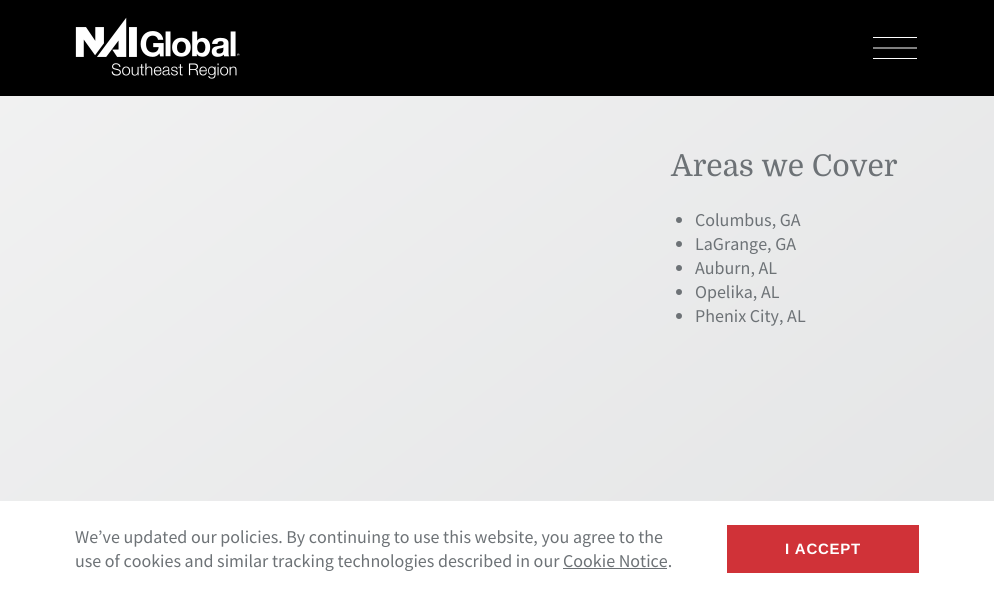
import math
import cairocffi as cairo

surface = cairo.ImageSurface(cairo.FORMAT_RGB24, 994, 597)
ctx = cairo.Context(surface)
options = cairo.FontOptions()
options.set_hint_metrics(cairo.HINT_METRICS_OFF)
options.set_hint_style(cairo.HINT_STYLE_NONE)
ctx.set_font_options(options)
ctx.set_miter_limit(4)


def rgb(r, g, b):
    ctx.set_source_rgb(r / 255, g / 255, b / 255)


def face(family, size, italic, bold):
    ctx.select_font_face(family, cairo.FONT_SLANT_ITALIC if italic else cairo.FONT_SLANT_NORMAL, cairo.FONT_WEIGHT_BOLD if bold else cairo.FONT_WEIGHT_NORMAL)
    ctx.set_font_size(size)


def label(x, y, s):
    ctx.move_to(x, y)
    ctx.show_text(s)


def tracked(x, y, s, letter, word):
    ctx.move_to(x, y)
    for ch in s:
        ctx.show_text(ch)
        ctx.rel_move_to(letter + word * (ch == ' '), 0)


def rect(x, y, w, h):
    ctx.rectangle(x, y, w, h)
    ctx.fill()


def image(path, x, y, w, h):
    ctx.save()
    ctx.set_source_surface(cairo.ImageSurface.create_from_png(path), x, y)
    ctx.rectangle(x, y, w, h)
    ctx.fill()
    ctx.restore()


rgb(255, 255, 255)
ctx.paint()
rgb(0, 0, 0)
rect(0, 0, 994, 96)
image('image0.png', 75, 17, 165, 62)
rgb(255, 255, 255)
rect(873, 37, 44, 1)
ctx.new_path()
ctx.move_to(916.5, 48)
ctx.line_to(873.5, 48)
ctx.set_line_width(1)
ctx.set_line_cap(cairo.LINE_CAP_SQUARE)
ctx.stroke()
rect(873, 58, 44, 1)
gradient = cairo.LinearGradient(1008, 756, -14, -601)
gradient.add_color_stop_rgba(0, 0.886, 0.89, 0.894, 1)
gradient.add_color_stop_rgba(1, 0.973, 0.973, 0.973, 1)
ctx.set_source(gradient)
rect(0, 96, 994, 405)
face('Domine', 30, 0, 0)
rgb(109, 114, 118)
label(671, 176, 'Areas we Cover')
ctx.new_path()
ctx.arc(679, 220, 3, 0, 2 * math.pi)
ctx.fill()
face('Source Sans Pro', 18, 0, 0)
label(695, 226, 'Columbus, GA')
ctx.new_path()
ctx.arc(679, 244, 3, 0, 2 * math.pi)
ctx.fill()
label(695, 250, 'LaGrange, GA')
ctx.new_path()
ctx.arc(679, 268, 3, 0, 2 * math.pi)
ctx.fill()
label(695, 274, 'Auburn, AL')
ctx.new_path()
ctx.arc(679, 292, 3, 0, 2 * math.pi)
ctx.fill()
label(695, 298, 'Opelika, AL')
ctx.new_path()
ctx.arc(679, 316, 3, 0, 2 * math.pi)
ctx.fill()
label(695, 322, 'Phenix City, AL')
label(75, 543, 'We’ve updated our policies. By continuing to use this website, you agree to the')
label(75, 567, 'use of cookies and similar tracking technologies described in our Cookie Notice.')
rect(563, 568, 104, 1)
rgb(208, 50, 56)
rect(727, 525, 192, 48)
face('Liberation Sans', 15, 0, 1)
rgb(255, 255, 255)
tracked(785, 554, 'I ACCEPT', 0.75, 0)
surface.write_to_png('render.png')
